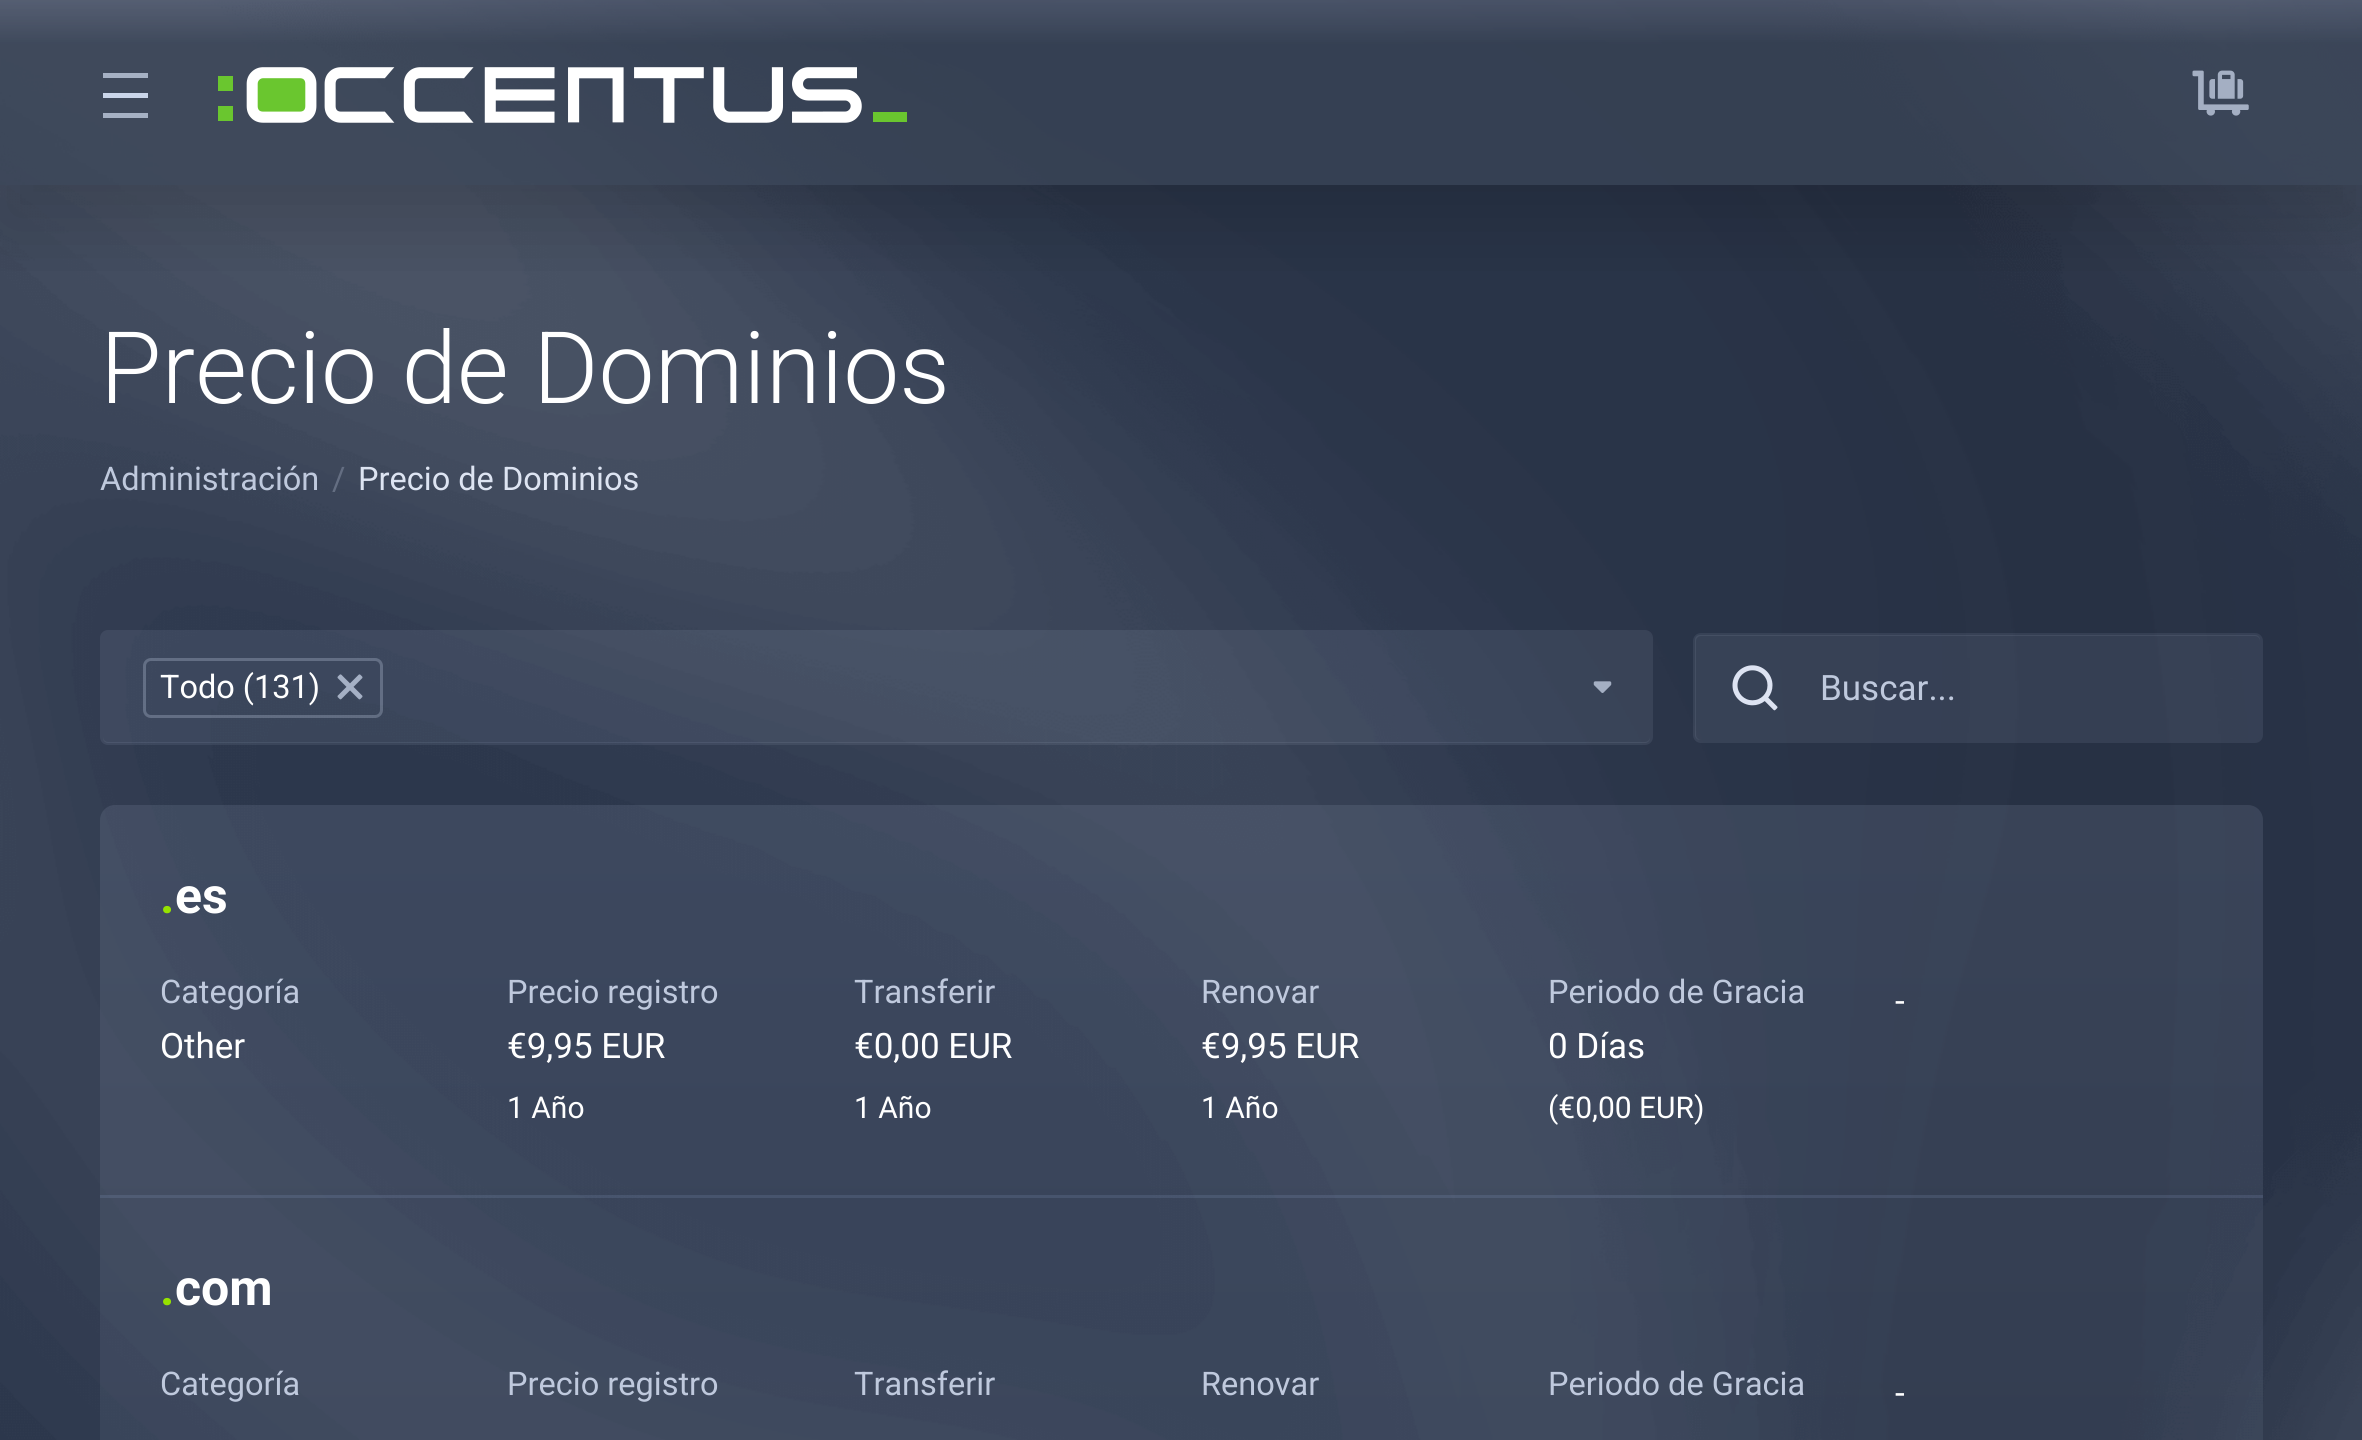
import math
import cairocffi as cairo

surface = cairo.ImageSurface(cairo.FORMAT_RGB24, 2362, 1440)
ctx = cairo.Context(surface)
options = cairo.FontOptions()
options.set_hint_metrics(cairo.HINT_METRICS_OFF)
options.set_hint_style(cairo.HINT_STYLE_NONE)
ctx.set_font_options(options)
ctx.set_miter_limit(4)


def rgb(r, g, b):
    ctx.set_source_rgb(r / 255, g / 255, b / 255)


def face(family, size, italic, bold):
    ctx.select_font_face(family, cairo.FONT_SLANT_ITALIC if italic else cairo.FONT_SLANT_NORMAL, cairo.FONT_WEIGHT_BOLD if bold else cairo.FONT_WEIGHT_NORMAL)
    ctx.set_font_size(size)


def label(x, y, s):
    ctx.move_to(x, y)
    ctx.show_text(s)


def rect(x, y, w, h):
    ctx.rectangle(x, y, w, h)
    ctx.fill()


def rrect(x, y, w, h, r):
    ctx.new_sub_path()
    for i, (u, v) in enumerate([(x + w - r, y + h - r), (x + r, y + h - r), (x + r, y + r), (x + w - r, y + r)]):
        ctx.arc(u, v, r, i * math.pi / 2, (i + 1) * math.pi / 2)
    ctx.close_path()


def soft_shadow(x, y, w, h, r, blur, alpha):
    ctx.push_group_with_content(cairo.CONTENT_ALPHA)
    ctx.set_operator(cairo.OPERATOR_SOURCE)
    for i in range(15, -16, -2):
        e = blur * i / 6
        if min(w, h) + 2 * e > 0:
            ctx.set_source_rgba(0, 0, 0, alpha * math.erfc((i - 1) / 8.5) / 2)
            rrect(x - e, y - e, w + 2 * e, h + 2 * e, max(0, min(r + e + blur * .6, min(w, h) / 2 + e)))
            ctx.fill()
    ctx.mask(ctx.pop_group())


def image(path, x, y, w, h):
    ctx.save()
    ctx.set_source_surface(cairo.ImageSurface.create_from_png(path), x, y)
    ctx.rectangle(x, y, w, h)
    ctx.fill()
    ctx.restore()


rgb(44, 55, 76)
ctx.paint()
image('image0.png', 0, 0, 2362, 1440)
ctx.save()
ctx.rectangle(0, 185, 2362, 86)
ctx.clip()
rgb(0, 0, 0)
soft_shadow(0, 40, 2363, 185, 0, 40, 0.16)
ctx.restore()
gradient = cairo.LinearGradient(1181, 0, 1181, 185)
gradient.add_color_stop_rgba(0, 0.357, 0.392, 0.475, 0.64)
gradient.add_color_stop_rgba(0.24, 0.227, 0.271, 0.341, 0.72)
gradient.add_color_stop_rgba(1, 0.227, 0.271, 0.341, 0.72)
ctx.set_source(gradient)
rect(0, 0, 2362, 185)
rgb(166, 177, 196)
rect(103, 73, 45, 5)
rgb(203, 214, 234)
rect(103, 93, 45, 5)
rgb(166, 177, 196)
rect(103, 113, 45, 5)
image('image1.png', 218, 67, 689, 56)
image('image2.png', 2192, 70, 57, 46)
face('Roboto Light', 100, 0, 0)
rgb(255, 255, 255)
label(100, 403, 'Precio de Dominios')
face('Roboto', 32.5, 0, 0)
rgb(191, 201, 221)
label(100, 490, 'Administración')
rgb(100, 110, 130)
label(332, 490, '/')
rgb(221, 228, 242)
label(358, 490, 'Precio de Dominios')
ctx.set_source_rgba(0.878, 0.922, 1, 0.08)
rrect(103, 633, 1547, 110, 5)
ctx.fill()
rrect(101.5, 631.5, 1550, 112, 6.5)
ctx.set_line_width(3)
ctx.stroke()
rrect(144.5, 659.5, 237, 57, 6.5)
ctx.set_source_rgba(0.878, 0.922, 1, 0.24)
ctx.stroke()
rgb(255, 255, 255)
label(160, 698, 'Todo (131)')
image('image3.png', 337, 674, 26, 26)
image('image4.png', 1593, 681, 19, 12)
ctx.set_source_rgba(0.878, 0.922, 1, 0.08)
rrect(1695, 635, 565, 105, 5)
ctx.fill()
rrect(1694.5, 634.5, 567, 107, 6.5)
ctx.stroke()
image('image5.png', 1732, 665, 46, 46)
face('Roboto', 35, 0, 0)
rgb(191, 201, 221)
label(1820, 700, 'Buscar...')
gradient = cairo.LinearGradient(1181, 805, 1181, 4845)
gradient.add_color_stop_rgba(0, 0.592, 0.643, 0.745, 0.16)
gradient.add_color_stop_rgba(0.24, 0.365, 0.412, 0.502, 0.16)
gradient.add_color_stop_rgba(1, 0.365, 0.412, 0.502, 0.16)
ctx.set_source(gradient)
rrect(100, 805, 2163, 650, 15)
ctx.fill()
ctx.set_source_rgba(0.698, 0.8, 1, 0.12)
rect(100, 1195, 2163, 3)
face('Roboto', 50, 0, 1)
rgb(150, 226, 0)
label(160, 913, '.')
rgb(255, 255, 255)
label(175, 913, 'es')
face('Roboto', 32.5, 0, 0)
rgb(191, 201, 221)
label(160, 1003, 'Categoría')
face('Roboto', 35, 0, 0)
rgb(255, 255, 255)
label(160, 1058, 'Other')
face('Roboto', 32.5, 0, 0)
rgb(191, 201, 221)
label(507, 1003, 'Precio registro')
face('Roboto', 35, 0, 0)
rgb(255, 255, 255)
label(507, 1058, '€9,95 EUR')
face('Roboto', 30, 0, 0)
label(507, 1118, '1 Año')
face('Roboto', 32.5, 0, 0)
rgb(191, 201, 221)
label(854, 1003, 'Transferir')
face('Roboto', 35, 0, 0)
rgb(255, 255, 255)
label(854, 1058, '€0,00 EUR')
face('Roboto', 30, 0, 0)
label(854, 1118, '1 Año')
face('Roboto', 32.5, 0, 0)
rgb(191, 201, 221)
label(1201, 1003, 'Renovar')
face('Roboto', 35, 0, 0)
rgb(255, 255, 255)
label(1201, 1058, '€9,95 EUR')
face('Roboto', 30, 0, 0)
label(1201, 1118, '1 Año')
face('Roboto', 32.5, 0, 0)
rgb(191, 201, 221)
label(1548, 1003, 'Periodo de Gracia')
face('Roboto', 35, 0, 0)
rgb(255, 255, 255)
label(1548, 1058, '0 Días')
face('Roboto', 30, 0, 0)
label(1548, 1118, '(€0,00 EUR)')
face('Roboto', 35, 0, 0)
label(1895, 1013, '-')
face('Roboto', 50, 0, 1)
rgb(150, 226, 0)
label(160, 1305, '.')
rgb(255, 255, 255)
label(175, 1305, 'com')
face('Roboto', 32.5, 0, 0)
rgb(191, 201, 221)
label(160, 1395, 'Categoría')
label(507, 1395, 'Precio registro')
label(854, 1395, 'Transferir')
label(1201, 1395, 'Renovar')
label(1548, 1395, 'Periodo de Gracia')
face('Roboto', 35, 0, 0)
rgb(255, 255, 255)
label(1895, 1405, '-')
surface.write_to_png('render.png')
